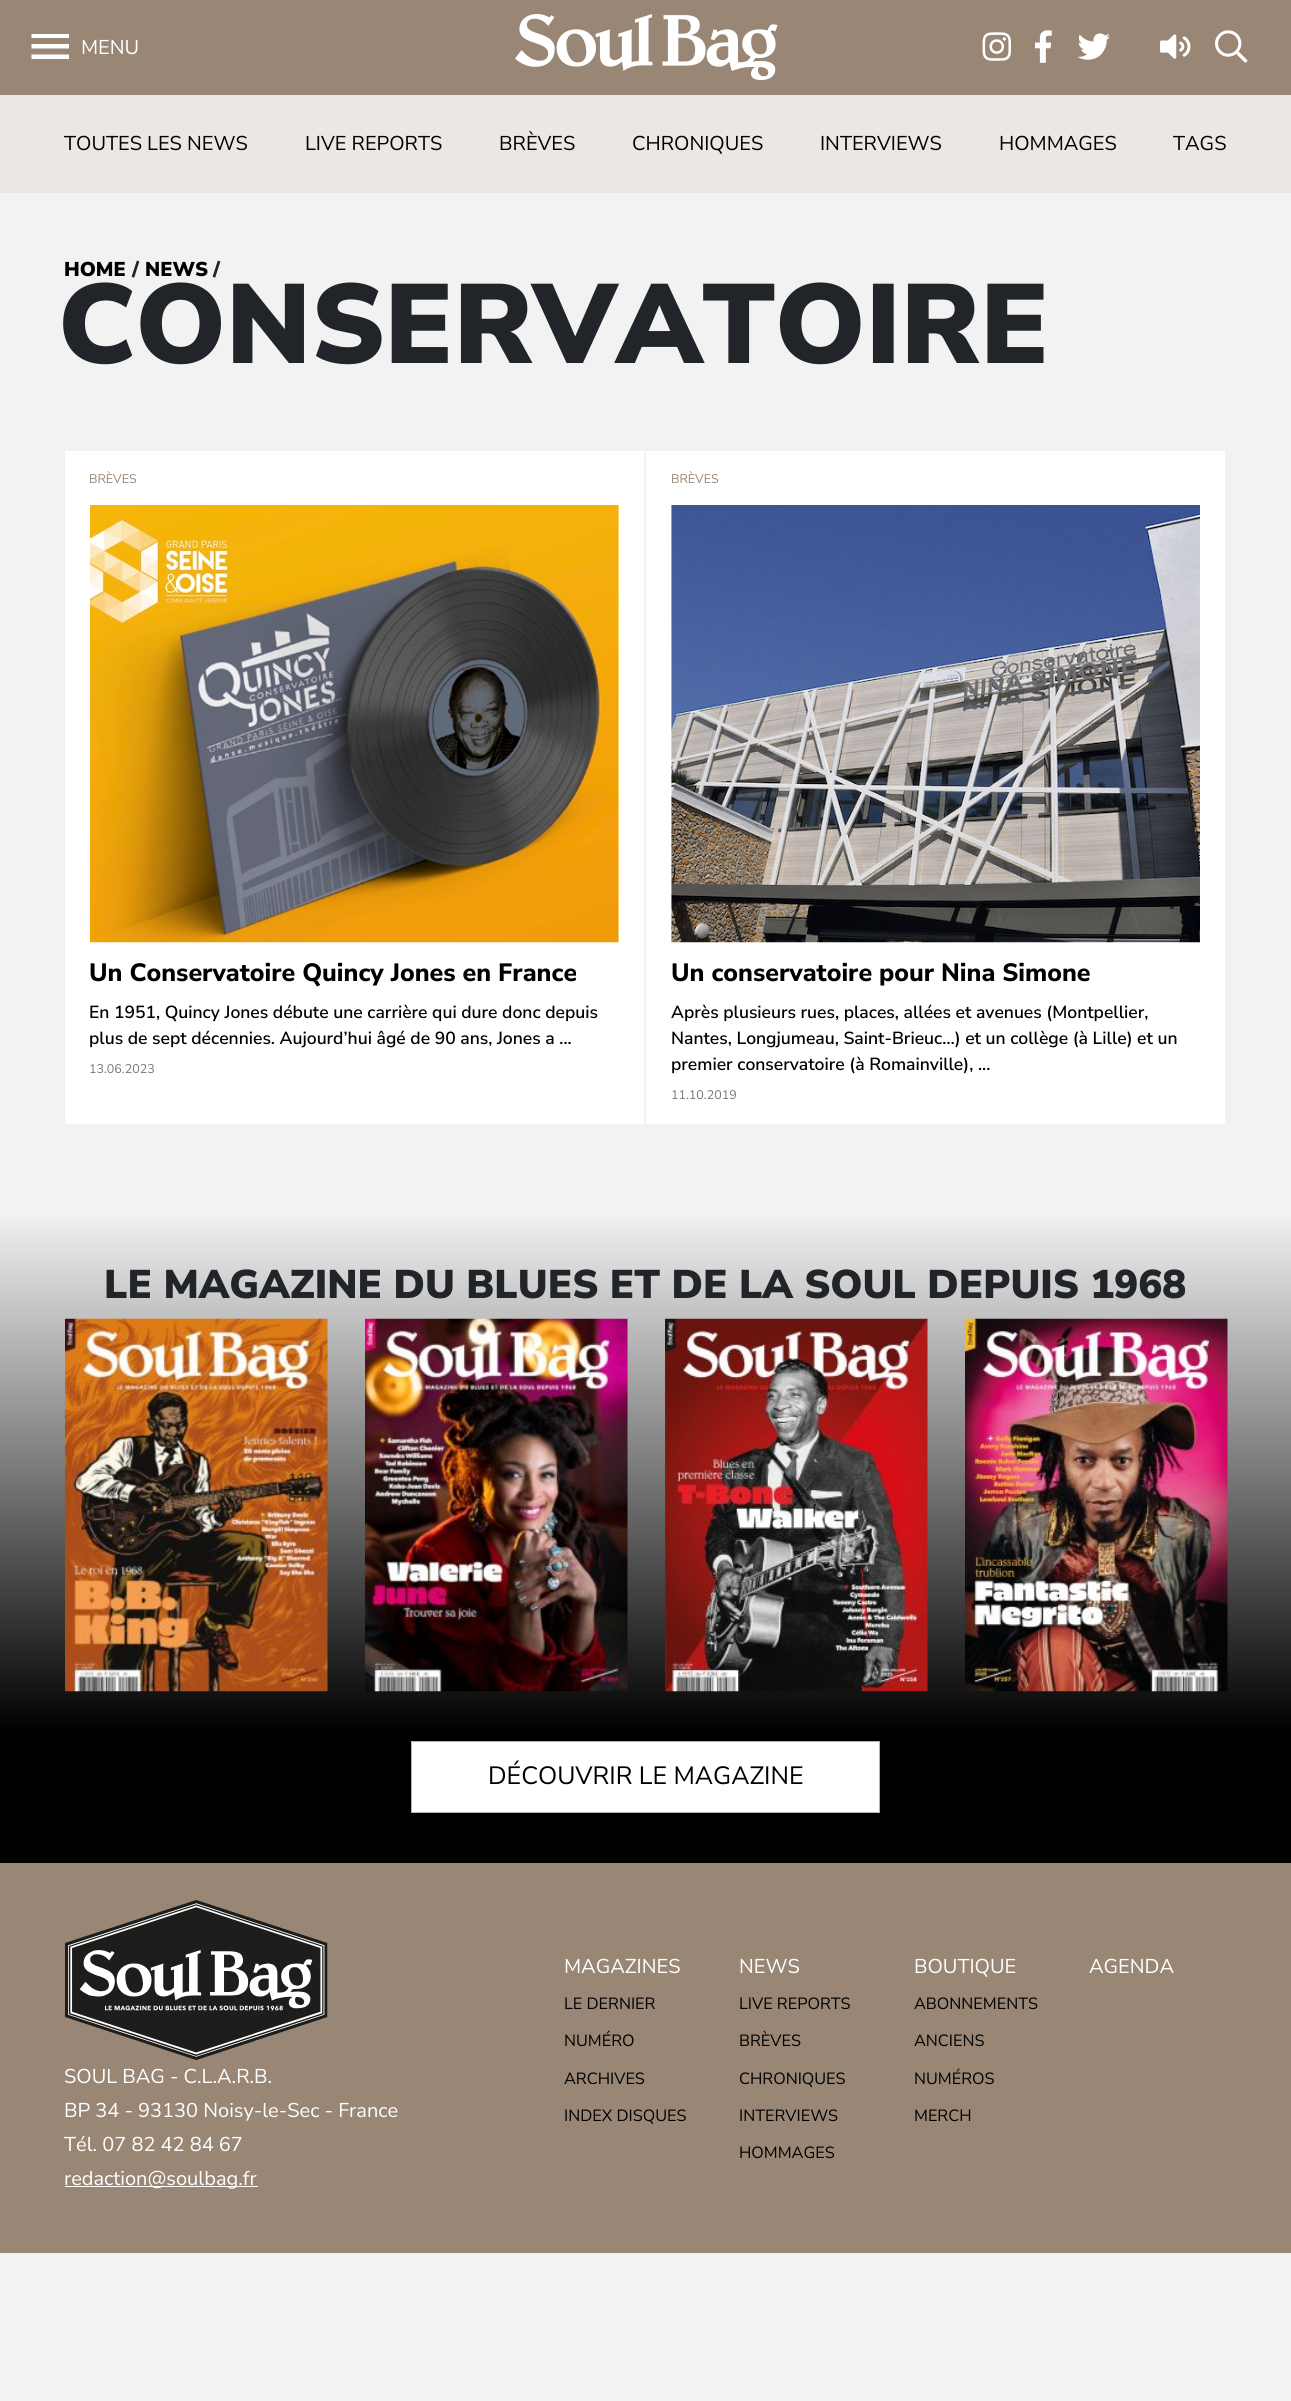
import math
import cairocffi as cairo

surface = cairo.ImageSurface(cairo.FORMAT_RGB24, 1291, 2401)
ctx = cairo.Context(surface)
options = cairo.FontOptions()
options.set_hint_metrics(cairo.HINT_METRICS_OFF)
options.set_hint_style(cairo.HINT_STYLE_NONE)
ctx.set_font_options(options)
ctx.set_miter_limit(4)


def rgb(r, g, b):
    ctx.set_source_rgb(r / 255, g / 255, b / 255)


def face(family, size, italic, bold):
    ctx.select_font_face(family, cairo.FONT_SLANT_ITALIC if italic else cairo.FONT_SLANT_NORMAL, cairo.FONT_WEIGHT_BOLD if bold else cairo.FONT_WEIGHT_NORMAL)
    ctx.set_font_size(size)


def label(x, y, s):
    ctx.move_to(x, y)
    ctx.show_text(s)


def rect(x, y, w, h):
    ctx.rectangle(x, y, w, h)
    ctx.fill()


def image(path, x, y, w, h):
    ctx.save()
    ctx.set_source_surface(cairo.ImageSurface.create_from_png(path), x, y)
    ctx.rectangle(x, y, w, h)
    ctx.fill()
    ctx.restore()


rgb(242, 242, 242)
ctx.paint()
rgb(153, 134, 117)
rect(0, 0, 1291, 95)
rgb(255, 255, 255)
ctx.new_path()
ctx.move_to(31.5, 59)
ctx.line_to(69, 59)
ctx.line_to(69, 54.5)
ctx.line_to(31.5, 54.5)
ctx.close_path()
ctx.move_to(31.5, 48.5)
ctx.line_to(69, 48.5)
ctx.line_to(69, 44)
ctx.line_to(31.5, 44)
ctx.close_path()
ctx.move_to(31.5, 34)
ctx.line_to(31.5, 38)
ctx.line_to(69, 38)
ctx.line_to(69, 34)
ctx.close_path()
ctx.fill()
face('Nunito Sans', 20, 0, 0)
label(81, 54, 'MENU')
image('image0.png', 515, 14, 263, 66)
image('image1.png', 982, 32, 29, 29)
image('image2.png', 1035, 30, 17, 33)
image('image3.png', 1077, 33, 33, 27)
image('image4.png', 1160, 34, 31, 25)
image('image5.png', 1215, 30, 33, 33)
rgb(234, 231, 229)
rect(0, 95, 1291, 98)
rgb(0, 0, 0)
label(64, 150, 'TOUTES LES NEWS')
label(305, 150, 'LIVE REPORTS')
label(499, 150, 'BRÈVES')
label(632, 150, 'CHRONIQUES')
label(820, 150, 'INTERVIEWS')
label(999, 150, 'HOMMAGES')
label(1173, 150, 'TAGS')
face('Nunito Sans Black', 20, 0, 0)
label(64, 276, 'HOME')
rgb(33, 37, 41)
label(132, 276, '/')
rgb(0, 0, 0)
label(145, 276, 'NEWS')
rgb(33, 37, 41)
label(213, 276, '/')
face('Nunito Sans Black', 112.5, 0, 0)
label(58, 363, 'CONSERVATOIRE')
rgb(255, 255, 255)
rect(65, 451, 579, 673)
face('Nunito Sans', 12.5, 0, 0)
rgb(153, 134, 117)
label(89, 483, 'BRÈVES')
image('image6.png', 90, 505, 529, 438)
face('Nunito Sans ExtraBold', 25, 0, 0)
rgb(0, 0, 0)
label(89, 981, 'Un Conservatoire Quincy Jones en France')
face('Nunito Sans SemiBold', 17.5, 0, 0)
label(89, 1018, 'En 1951, Quincy Jones débute une carrière qui dure donc depuis')
label(89, 1044, 'plus de sept décennies. Aujourd’hui âgé de 90 ans, Jones a ...')
face('Nunito Sans', 12.5, 0, 0)
rgb(119, 119, 119)
label(89, 1073, '13.06.2023')
rgb(255, 255, 255)
rect(646, 451, 579, 673)
rgb(153, 134, 117)
label(671, 483, 'BRÈVES')
image('image7.png', 671, 505, 529, 438)
face('Nunito Sans ExtraBold', 25, 0, 0)
rgb(0, 0, 0)
label(671, 981, 'Un conservatoire pour Nina Simone')
face('Nunito Sans SemiBold', 17.5, 0, 0)
label(671, 1018, 'Après plusieurs rues, places, allées et avenues (Montpellier,')
label(671, 1044, 'Nantes, Longjumeau, Saint-Brieuc…) et un collège (à Lille) et un')
label(671, 1070, 'premier conservatoire (à Romainville), ...')
face('Nunito Sans', 12.5, 0, 0)
rgb(119, 119, 119)
label(671, 1099, '11.10.2019')
gradient = cairo.LinearGradient(646, 1211, 646, 1863)
gradient.add_color_stop_rgba(0, 0.949, 0.949, 0.949, 1)
gradient.add_color_stop_rgba(0.8, 0, 0, 0, 1)
gradient.add_color_stop_rgba(0.97, 0, 0, 0, 1)
ctx.set_source(gradient)
rect(0, 1216, 1291, 647)
face('Nunito Sans Black', 40, 0, 0)
rgb(33, 37, 41)
label(104, 1298, 'LE MAGAZINE DU BLUES ET DE LA SOUL DEPUIS 1968')
image('image8.png', 65, 1318, 263, 374)
image('image9.png', 365, 1318, 263, 374)
image('image10.png', 665, 1318, 263, 374)
image('image11.png', 965, 1318, 263, 374)
rgb(255, 255, 255)
ctx.rectangle(411.5, 1741.5, 468, 71)
ctx.fill_preserve()
rgb(179, 179, 179)
ctx.set_line_width(1)
ctx.stroke()
face('Nunito Sans', 25, 0, 0)
rgb(0, 0, 0)
label(488, 1784, 'DÉCOUVRIR LE MAGAZINE')
rgb(153, 134, 117)
rect(0, 1863, 1291, 390)
image('image12.png', 65, 1900, 263, 160)
face('Nunito Sans', 20, 0, 0)
rgb(255, 255, 255)
label(64, 2083, 'SOUL BAG - C.L.A.R.B.')
label(64, 2117, 'BP 34 - 93130 Noisy-le-Sec - France')
label(64, 2151, 'Tél. 07 82 42 84 67')
rect(65, 2186, 193, 1)
label(64, 2185, 'redaction@soulbag.fr')
label(564, 1973, 'MAGAZINES')
face('Nunito Sans', 16.25, 0, 0)
rgb(0, 0, 0)
label(564, 2009, 'LE DERNIER')
label(564, 2046, 'NUMÉRO')
label(564, 2084, 'ARCHIVES')
label(564, 2121, 'INDEX DISQUES')
face('Nunito Sans', 20, 0, 0)
rgb(255, 255, 255)
label(739, 1973, 'NEWS')
face('Nunito Sans', 16.25, 0, 0)
rgb(0, 0, 0)
label(739, 2009, 'LIVE REPORTS')
label(739, 2046, 'BRÈVES')
label(739, 2084, 'CHRONIQUES')
label(739, 2121, 'INTERVIEWS')
label(739, 2158, 'HOMMAGES')
face('Nunito Sans', 20, 0, 0)
rgb(255, 255, 255)
label(914, 1973, 'BOUTIQUE')
face('Nunito Sans', 16.25, 0, 0)
rgb(0, 0, 0)
label(914, 2009, 'ABONNEMENTS')
label(914, 2046, 'ANCIENS')
label(914, 2084, 'NUMÉROS')
label(914, 2121, 'MERCH')
face('Nunito Sans', 20, 0, 0)
rgb(255, 255, 255)
label(1089, 1973, 'AGENDA')
surface.write_to_png('render.png')
